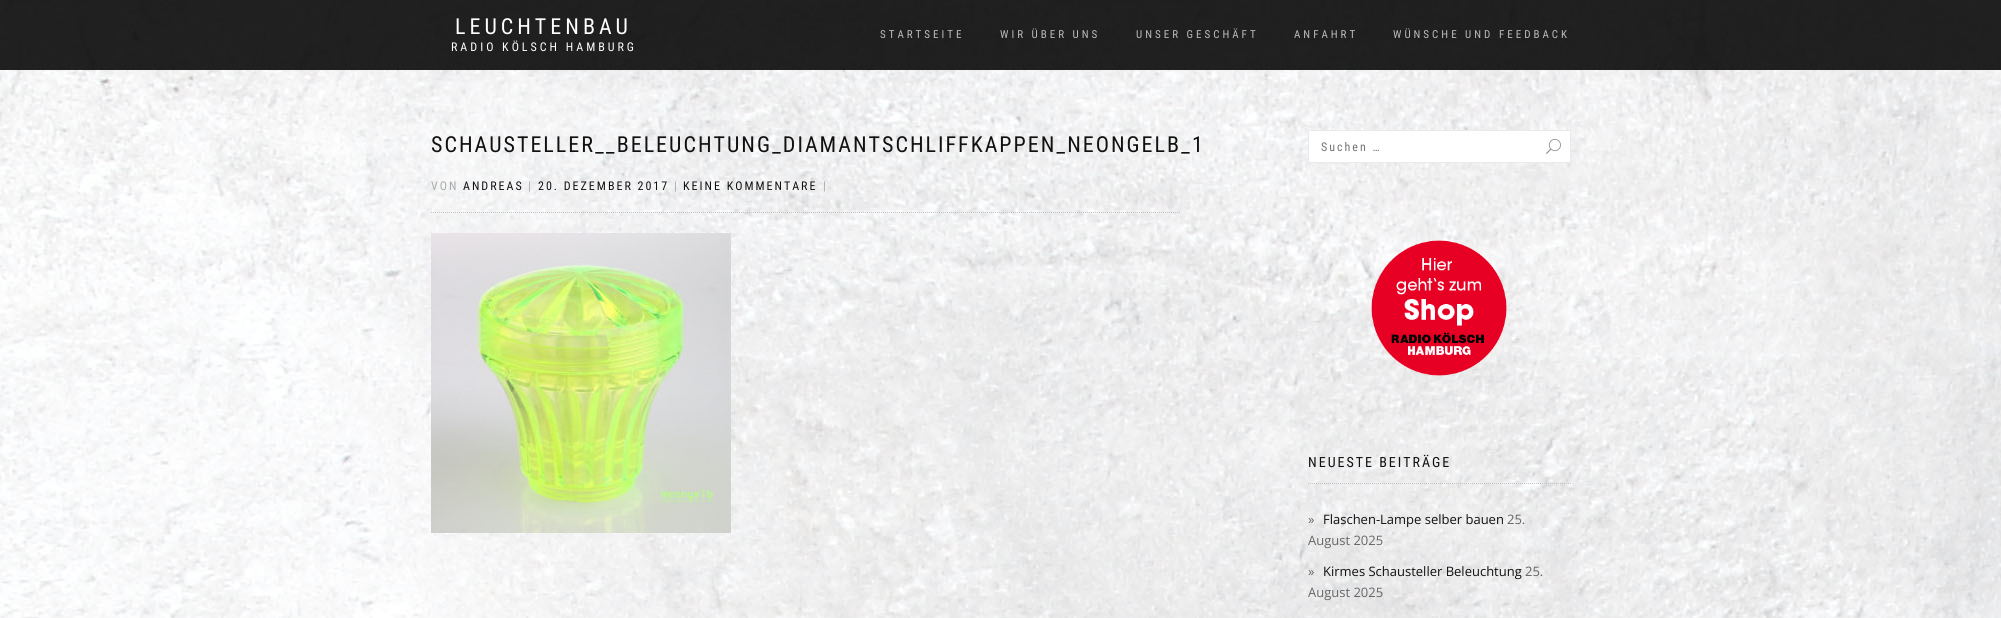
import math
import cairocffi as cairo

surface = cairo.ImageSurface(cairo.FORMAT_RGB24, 2001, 618)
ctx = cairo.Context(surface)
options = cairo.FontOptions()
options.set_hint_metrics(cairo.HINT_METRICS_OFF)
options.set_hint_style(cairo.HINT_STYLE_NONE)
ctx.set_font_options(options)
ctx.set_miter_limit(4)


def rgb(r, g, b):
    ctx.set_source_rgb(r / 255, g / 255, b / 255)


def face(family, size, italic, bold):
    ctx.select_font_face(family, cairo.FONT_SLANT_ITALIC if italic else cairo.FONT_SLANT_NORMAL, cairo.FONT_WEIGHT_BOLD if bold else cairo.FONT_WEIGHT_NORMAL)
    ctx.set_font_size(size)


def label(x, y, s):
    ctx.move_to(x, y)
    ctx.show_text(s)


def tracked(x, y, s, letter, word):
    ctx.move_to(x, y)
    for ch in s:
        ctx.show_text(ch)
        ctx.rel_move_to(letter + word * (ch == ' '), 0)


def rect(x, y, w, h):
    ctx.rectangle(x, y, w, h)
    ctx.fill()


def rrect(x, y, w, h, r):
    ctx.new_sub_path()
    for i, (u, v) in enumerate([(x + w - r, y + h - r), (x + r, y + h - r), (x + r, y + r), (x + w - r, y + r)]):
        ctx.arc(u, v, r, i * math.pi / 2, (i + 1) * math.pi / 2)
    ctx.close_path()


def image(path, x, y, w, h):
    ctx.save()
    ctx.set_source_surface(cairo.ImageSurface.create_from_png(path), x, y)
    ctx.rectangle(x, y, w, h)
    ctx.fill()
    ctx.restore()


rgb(255, 255, 255)
ctx.paint()
image('image0.png', 0, 0, 2001, 618)
ctx.set_source_rgba(0.039, 0.039, 0.039, 0.9)
rect(0, 0, 2001, 70)
face('Roboto Condensed', 22, 0, 0)
rgb(255, 255, 255)
tracked(455, 34, 'LEUCHTENBAU', 4, 0)
face('Roboto Condensed', 12, 0, 0)
tracked(451, 51, 'RADIO KÖLSCH HAMBURG', 3, 0)
face('Roboto Condensed', 11, 0, 0)
rgb(188, 188, 188)
tracked(880, 38, 'STARTSEITE', 3, 0)
tracked(1000, 38, 'WIR ÜBER UNS', 3, 0)
tracked(1136, 38, 'UNSER GESCHÄFT', 3, 0)
tracked(1294, 38, 'ANFAHRT', 3, 0)
tracked(1393, 38, 'WÜNSCHE UND FEEDBACK', 3, 0)
face('Roboto Condensed', 22, 0, 0)
rgb(17, 17, 17)
tracked(431, 152, 'SCHAUSTELLER__BELEUCHTUNG_DIAMANTSCHLIFFKAPPEN_NEONGELB_1', 2, 0)
face('Roboto Condensed', 12, 0, 0)
rgb(170, 170, 170)
tracked(431, 190, 'VON', 2, 0)
rgb(17, 17, 17)
tracked(463, 190, 'ANDREAS', 2, 0)
rgb(170, 170, 170)
tracked(528, 190, '|', 2, 0)
rgb(17, 17, 17)
tracked(538, 190, '20. DEZEMBER 2017', 2, 0)
rgb(170, 170, 170)
tracked(674, 190, '|', 2, 0)
rgb(17, 17, 17)
tracked(683, 190, 'KEINE KOMMENTARE', 2, 0)
rgb(170, 170, 170)
tracked(823, 190, '|', 2, 0)
ctx.new_path()
ctx.move_to(431, 212.5)
ctx.line_to(1181, 212.5)
rgb(194, 194, 194)
ctx.set_line_width(1)
ctx.set_dash([1, 1])
ctx.stroke()
image('image1.png', 431, 233, 300, 300)
rgb(255, 255, 255)
rrect(1308.5, 130.5, 262, 32, 1.5)
ctx.fill_preserve()
rgb(234, 234, 234)
ctx.set_dash([])
ctx.stroke()
rgb(117, 117, 117)
tracked(1321, 151, 'Suchen …', 2, 0)
image('image2.png', 1546, 139, 15, 15)
image('image3.png', 1371, 240, 136, 136)
ctx.new_path()
ctx.move_to(1308, 483.5)
ctx.line_to(1571, 483.5)
rgb(194, 194, 194)
ctx.set_dash([1, 1])
ctx.stroke()
face('Roboto Condensed', 14, 0, 0)
rgb(17, 17, 17)
tracked(1308, 467, 'NEUESTE BEITRÄGE', 2, 0)
face('Open Sans', 13, 0, 0)
rgb(102, 102, 102)
label(1308, 524, '»')
rgb(17, 17, 17)
label(1323, 524, 'Flaschen-Lampe selber bauen')
rgb(102, 102, 102)
label(1507, 524, '25.')
label(1308, 545, 'August 2025')
label(1308, 576, '»')
rgb(17, 17, 17)
label(1323, 576, 'Kirmes Schausteller Beleuchtung')
rgb(102, 102, 102)
label(1525, 576, '25.')
label(1308, 597, 'August 2025')
surface.write_to_png('render.png')
